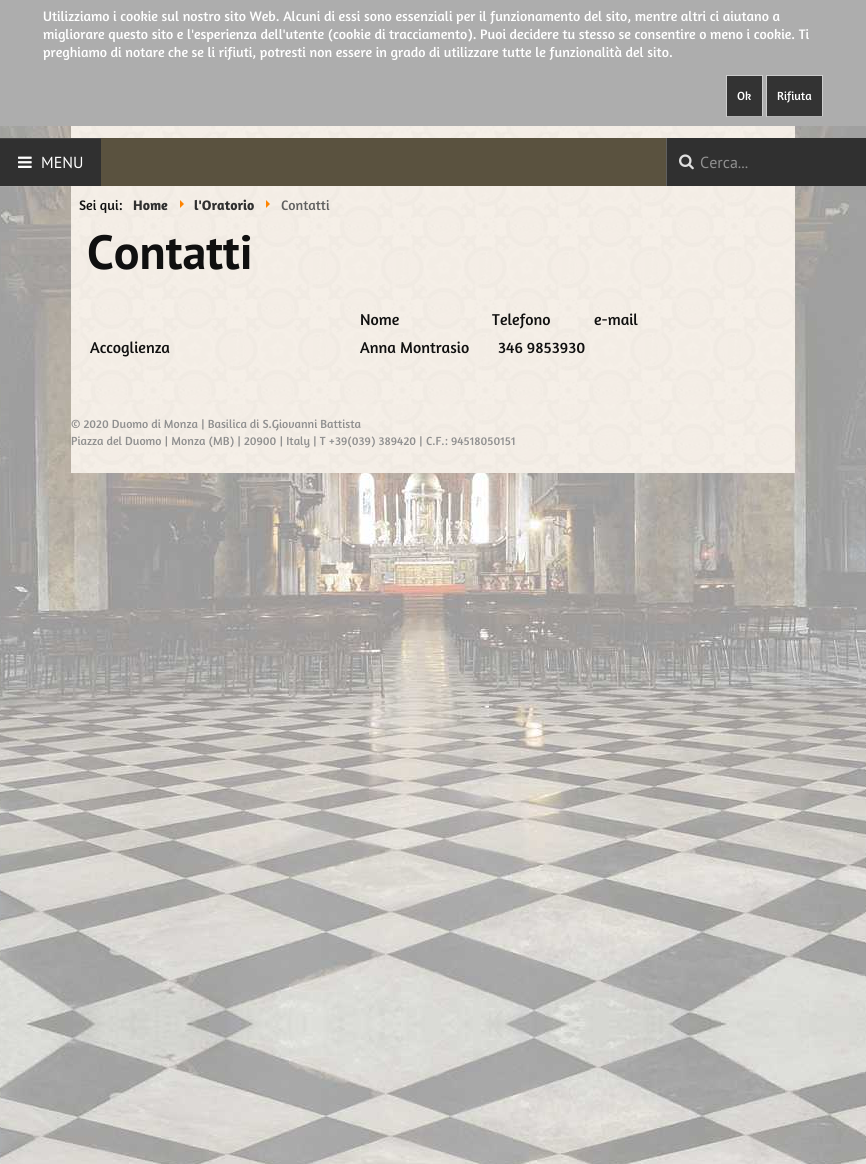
import math
import cairocffi as cairo

surface = cairo.ImageSurface(cairo.FORMAT_RGB24, 866, 1164)
ctx = cairo.Context(surface)
options = cairo.FontOptions()
options.set_hint_metrics(cairo.HINT_METRICS_OFF)
options.set_hint_style(cairo.HINT_STYLE_NONE)
ctx.set_font_options(options)
ctx.set_miter_limit(4)


def rgb(r, g, b):
    ctx.set_source_rgb(r / 255, g / 255, b / 255)


def face(family, size, italic, bold):
    ctx.select_font_face(family, cairo.FONT_SLANT_ITALIC if italic else cairo.FONT_SLANT_NORMAL, cairo.FONT_WEIGHT_BOLD if bold else cairo.FONT_WEIGHT_NORMAL)
    ctx.set_font_size(size)


def label(x, y, s):
    ctx.move_to(x, y)
    ctx.show_text(s)


def rect(x, y, w, h):
    ctx.rectangle(x, y, w, h)
    ctx.fill()


def image(path, x, y, w, h):
    ctx.save()
    ctx.set_source_surface(cairo.ImageSurface.create_from_png(path), x, y)
    ctx.rectangle(x, y, w, h)
    ctx.fill()
    ctx.restore()


rgb(255, 255, 255)
ctx.paint()
image('image0.png', 0, 126, 866, 1038)
rgb(173, 173, 173)
rect(0, 0, 866, 126)
face('Amaranth', 14, 0, 0)
rgb(255, 255, 255)
label(43, 21, 'Utilizziamo i cookie sul nostro sito Web. Alcuni di essi sono essenziali per il funzionamento del sito, mentre altri ci aiutano a')
label(43, 39, 'migliorare questo sito e l\'esperienza dell\'utente (cookie di tracciamento). Puoi decidere tu stesso se consentire o meno i cookie. Ti')
label(43, 57, 'preghiamo di notare che se li rifiuti, potresti non essere in grado di utilizzare tutte le funzionalità del sito.')
rgb(51, 51, 51)
rect(727, 76, 35, 40)
rgb(204, 204, 204)
rect(726, 75, 37, 1)
rect(762, 75, 1, 42)
rgb(179, 179, 179)
rect(726, 116, 37, 1)
rgb(204, 204, 204)
rect(726, 75, 1, 42)
face('Amaranth', 12, 0, 0)
rgb(255, 255, 255)
label(737, 100, 'Ok')
rgb(51, 51, 51)
rect(767, 76, 55, 40)
rgb(204, 204, 204)
rect(766, 75, 57, 1)
rect(822, 75, 1, 42)
rgb(179, 179, 179)
rect(766, 116, 57, 1)
rgb(204, 204, 204)
rect(766, 75, 1, 42)
rgb(255, 255, 255)
label(777, 100, 'Rifiuta')
image('image1.png', 71, 126, 724, 12)
rgb(90, 82, 63)
rect(101, 138, 565, 48)
ctx.set_source_rgba(1, 1, 1, 0.07)
rect(0, 186, 71, 1)
rgb(48, 48, 48)
rect(0, 139, 101, 47)
rgb(69, 69, 69)
rect(0, 138, 101, 1)
image('image2.png', 18, 156, 14, 12)
face('PT Sans', 16, 0, 0)
rgb(255, 255, 255)
label(41, 168, 'MENU')
rgb(48, 48, 48)
rect(667, 138, 199, 48)
rgb(96, 96, 96)
rect(666, 138, 1, 48)
image('image3.png', 679, 154, 15, 16)
rgb(144, 144, 144)
label(700, 168, 'Cerca...')
image('image4.png', 71, 186, 724, 218)
face('Amaranth', 14, 0, 0)
rgb(16, 16, 16)
label(79, 210, 'Sei qui:')
face('Amaranth', 14, 0, 1)
rgb(48, 48, 48)
label(133, 210, 'Home')
image('image5.png', 180, 200, 4, 8)
label(194, 210, 'l\'Oratorio')
image('image6.png', 266, 200, 4, 8)
face('Amaranth', 14, 0, 0)
rgb(96, 96, 96)
label(281, 210, 'Contatti')
face('PT Sans', 48, 0, 1)
rgb(16, 16, 16)
label(87, 269, 'Contatti')
face('Amaranth', 16, 0, 0)
label(360, 325, 'Nome')
label(492, 325, 'Telefono')
label(594, 325, 'e-mail')
label(90, 353, 'Accoglienza')
label(360, 353, 'Anna Montrasio')
label(498, 353, '346 9853930')
image('image7.png', 71, 404, 724, 69)
face('Amaranth', 12, 0, 0)
rgb(144, 144, 144)
label(71, 428, '© 2020 Duomo di Monza | Basilica di S.Giovanni Battista')
label(71, 445, 'Piazza del Duomo | Monza (MB) | 20900 | Italy | T +39(039) 389420 | C.F.: 94518050151')
surface.write_to_png('render.png')
